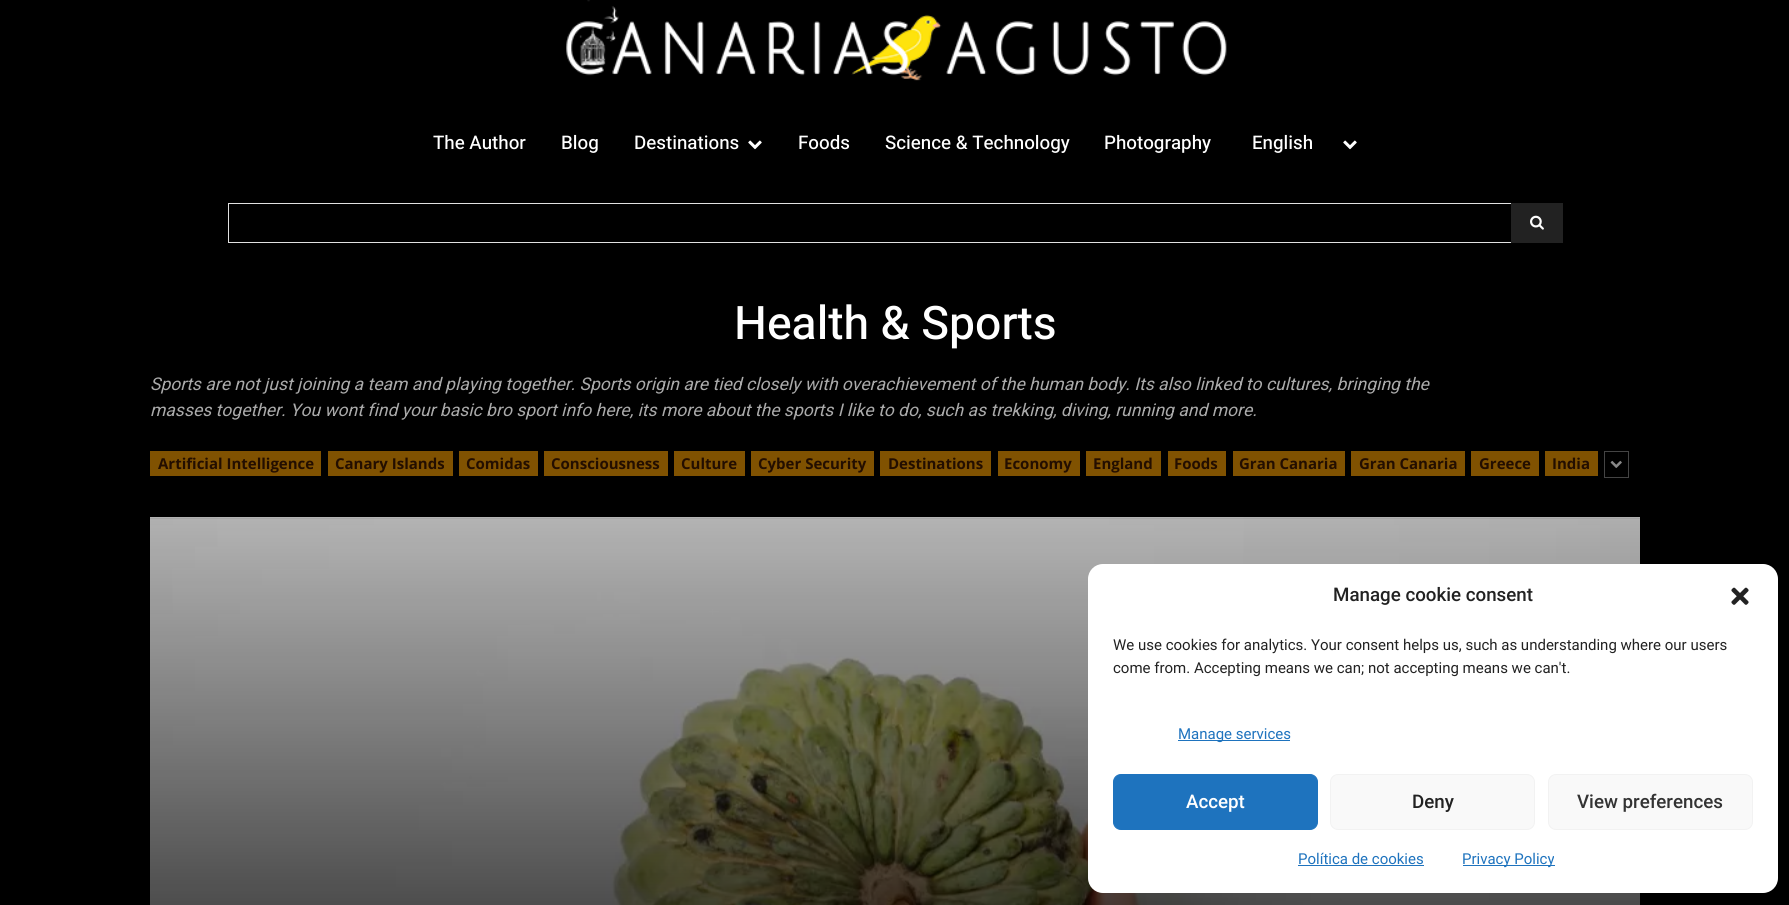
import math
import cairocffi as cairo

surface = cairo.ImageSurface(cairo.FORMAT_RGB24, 1789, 905)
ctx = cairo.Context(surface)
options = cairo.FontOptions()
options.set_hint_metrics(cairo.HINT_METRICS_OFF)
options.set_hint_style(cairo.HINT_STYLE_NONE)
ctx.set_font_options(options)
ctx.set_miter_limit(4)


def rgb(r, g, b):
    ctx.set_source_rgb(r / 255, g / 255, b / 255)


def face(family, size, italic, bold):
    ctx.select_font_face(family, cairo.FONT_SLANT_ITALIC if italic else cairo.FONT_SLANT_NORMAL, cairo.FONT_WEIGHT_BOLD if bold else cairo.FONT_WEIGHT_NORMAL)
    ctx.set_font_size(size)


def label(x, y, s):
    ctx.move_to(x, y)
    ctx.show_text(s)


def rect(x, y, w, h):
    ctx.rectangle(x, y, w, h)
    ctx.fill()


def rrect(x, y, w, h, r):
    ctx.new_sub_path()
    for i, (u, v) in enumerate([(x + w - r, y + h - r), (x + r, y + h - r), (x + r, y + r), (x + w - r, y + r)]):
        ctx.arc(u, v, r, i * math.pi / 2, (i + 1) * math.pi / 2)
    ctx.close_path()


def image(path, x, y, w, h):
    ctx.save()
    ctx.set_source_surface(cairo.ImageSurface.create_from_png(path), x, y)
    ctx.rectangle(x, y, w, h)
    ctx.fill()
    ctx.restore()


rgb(0, 0, 0)
ctx.paint()
image('image0.png', 566, 0, 661, 81)
face('Heebo Medium', 18.75, 0, 0)
rgb(255, 255, 255)
label(433, 149, 'The Author')
label(561, 149, 'Blog')
label(634, 149, 'Destinations')
image('image1.png', 748, 140, 14, 10)
label(798, 149, 'Foods')
label(885, 149, 'Science & Technology')
label(1104, 149, 'Photography')
label(1252, 149, 'English')
image('image1.png', 1343, 140, 14, 10)
ctx.rectangle(228.5, 203.5, 1334, 39)
rgb(225, 225, 225)
ctx.set_line_width(1)
ctx.stroke()
rgb(34, 34, 34)
rect(1511, 203, 52, 40)
image('image2.png', 1530, 215, 14, 15)
face('Heebo Medium', 46.25, 0, 0)
rgb(255, 255, 255)
label(734, 339, 'Health & Sports')
face('Heebo', 17.5, 1, 0)
rgb(170, 170, 170)
label(150, 390, 'Sports are not just joining a team and playing together. Sports origin are tied closely with overachievement of the human body. Its also linked to cultures, bringing the')
label(150, 416, 'masses together. You wont find your basic bro sport info here, its more about the sports I like to do, such as trekking, diving, running and more.')
rgb(128, 82, 1)
rect(150, 451, 171, 25)
face('Open Sans', 15, 0, 1)
rgb(35, 14, 0)
label(158, 469, 'Artificial Intelligence')
rgb(128, 82, 1)
rect(328, 451, 125, 25)
rgb(35, 14, 0)
label(335, 469, 'Canary Islands')
rgb(128, 82, 1)
rect(459, 451, 79, 25)
rgb(35, 14, 0)
label(466, 469, 'Comidas')
rgb(128, 82, 1)
rect(544, 451, 124, 25)
rgb(35, 14, 0)
label(551, 469, 'Consciousness')
rgb(128, 82, 1)
rect(674, 451, 71, 25)
rgb(35, 14, 0)
label(681, 469, 'Culture')
rgb(128, 82, 1)
rect(751, 451, 123, 25)
rgb(35, 14, 0)
label(758, 469, 'Cyber Security')
rgb(128, 82, 1)
rect(880, 451, 111, 25)
rgb(35, 14, 0)
label(888, 469, 'Destinations')
rgb(128, 82, 1)
rect(998, 451, 82, 25)
rgb(35, 14, 0)
label(1004, 469, 'Economy')
rgb(128, 82, 1)
rect(1086, 451, 75, 25)
rgb(35, 14, 0)
label(1093, 469, 'England')
rgb(128, 82, 1)
rect(1168, 451, 58, 25)
rgb(35, 14, 0)
label(1174, 469, 'Foods')
rgb(128, 82, 1)
rect(1233, 451, 112, 25)
rgb(35, 14, 0)
label(1239, 469, 'Gran Canaria')
rgb(128, 82, 1)
rect(1351, 451, 114, 25)
rgb(35, 14, 0)
label(1359, 469, 'Gran Canaria')
rgb(128, 82, 1)
rect(1471, 451, 68, 25)
rgb(35, 14, 0)
label(1479, 469, 'Greece')
rgb(128, 82, 1)
rect(1545, 451, 53, 25)
rgb(35, 14, 0)
label(1552, 469, 'India')
ctx.rectangle(1604.5, 451.5, 24, 26)
rgb(68, 68, 68)
ctx.stroke()
image('image3.png', 1610, 460, 12, 8)
image('image4.png', 150, 517, 1490, 388)
gradient = cairo.LinearGradient(895, 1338, 895, 518)
gradient.add_color_stop_rgba(0, 0, 0, 0, 1)
gradient.add_color_stop_rgba(0.17, 0, 0, 0, 1)
gradient.add_color_stop_rgba(1, 0, 0, 0, 0.25)
ctx.set_source(gradient)
rect(150, 518, 1490, 387)
rgb(255, 255, 255)
rrect(1088, 564, 690, 329, 15)
ctx.fill()
face('Roboto Medium', 18.75, 0, 0)
rgb(34, 34, 34)
label(1333, 601, 'Manage cookie consent')
image('image5.png', 1731, 587, 18, 18)
face('Roboto', 15, 0, 0)
label(1113, 650, 'We use cookies for analytics. Your consent helps us, such as understanding where our users')
label(1113, 673, 'come from. Accepting means we can; not accepting means we can\'t.')
rgb(30, 115, 190)
rect(1178, 740, 112, 1)
label(1178, 739, 'Manage services')
rrect(1113.5, 774.5, 204, 55, 7.5)
ctx.fill_preserve()
ctx.stroke()
face('Roboto Medium', 18.75, 0, 0)
rgb(255, 255, 255)
label(1186, 808, 'Accept')
rgb(249, 249, 249)
rrect(1330.5, 774.5, 204, 55, 7.5)
ctx.fill_preserve()
rgb(242, 242, 242)
ctx.stroke()
rgb(34, 34, 34)
label(1412, 808, 'Deny')
rgb(249, 249, 249)
rrect(1548.5, 774.5, 204, 55, 7.5)
ctx.fill_preserve()
rgb(242, 242, 242)
ctx.stroke()
rgb(51, 51, 51)
label(1577, 808, 'View preferences')
face('Roboto', 15, 0, 0)
rgb(30, 115, 190)
label(1298, 864, 'Política de cookies')
rect(1298, 865, 126, 1)
rect(1463, 865, 92, 1)
label(1462, 864, 'Privacy Policy')
surface.write_to_png('render.png')
